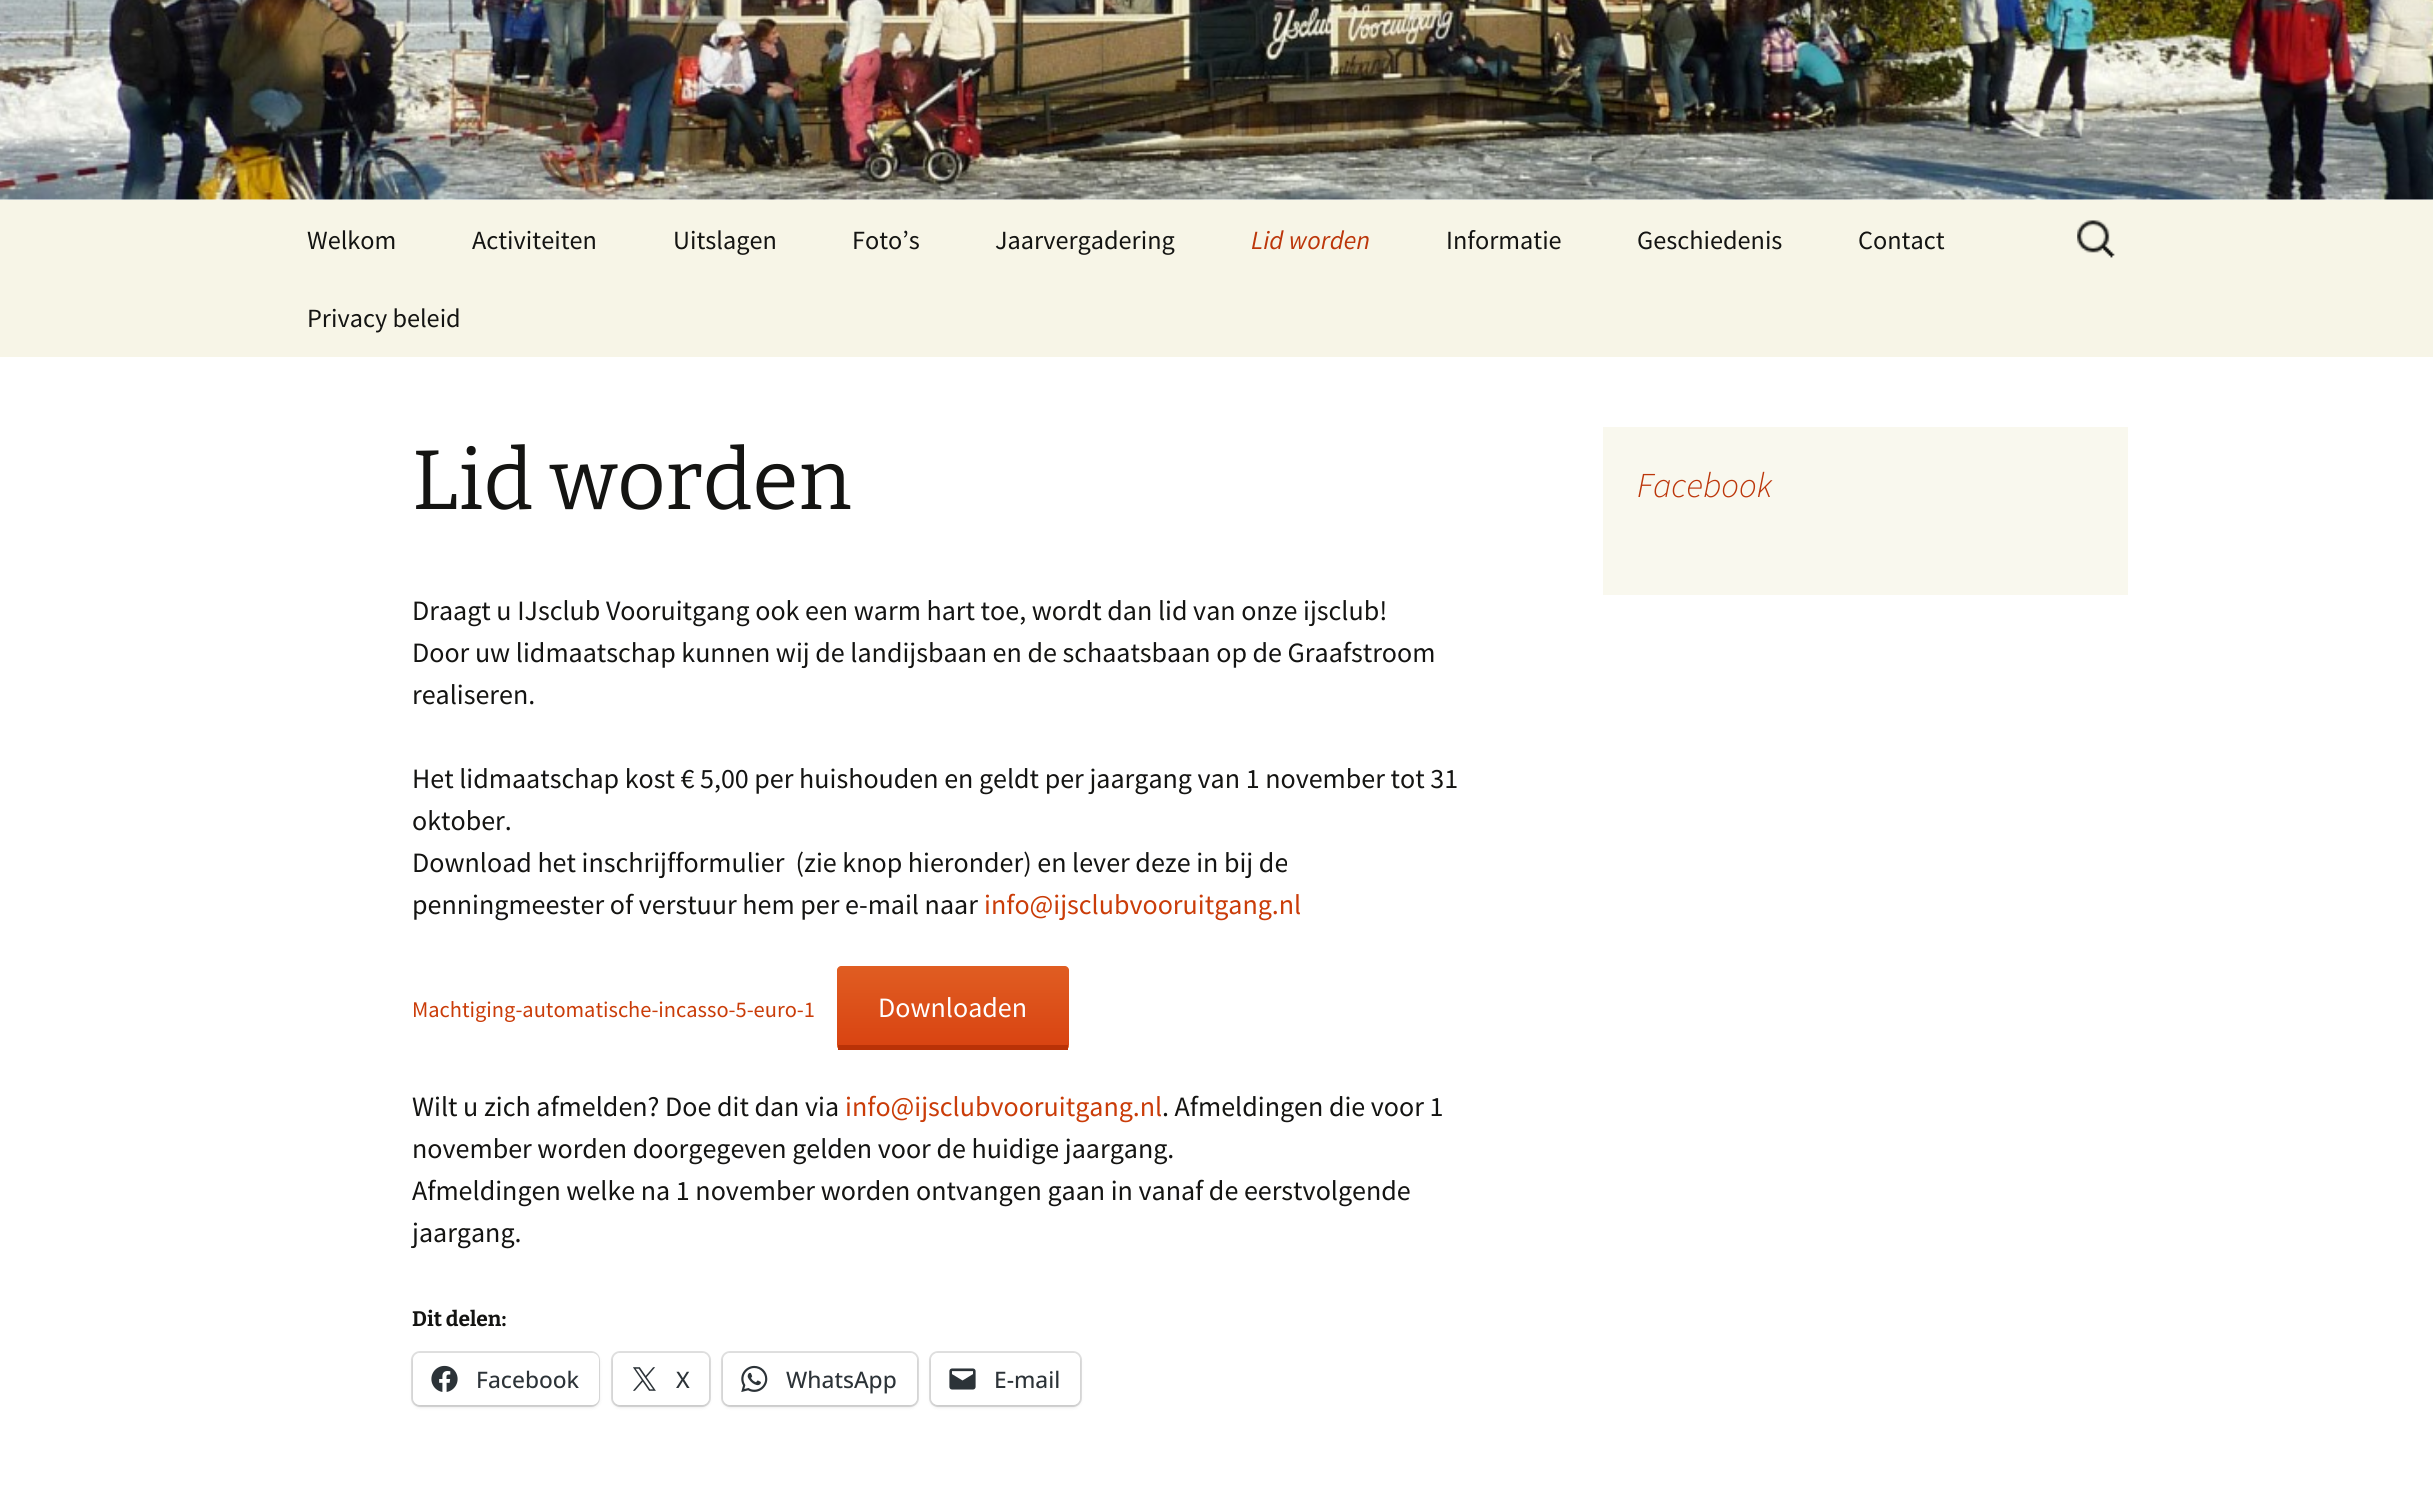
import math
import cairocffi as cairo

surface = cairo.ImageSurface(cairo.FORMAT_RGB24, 2433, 1498)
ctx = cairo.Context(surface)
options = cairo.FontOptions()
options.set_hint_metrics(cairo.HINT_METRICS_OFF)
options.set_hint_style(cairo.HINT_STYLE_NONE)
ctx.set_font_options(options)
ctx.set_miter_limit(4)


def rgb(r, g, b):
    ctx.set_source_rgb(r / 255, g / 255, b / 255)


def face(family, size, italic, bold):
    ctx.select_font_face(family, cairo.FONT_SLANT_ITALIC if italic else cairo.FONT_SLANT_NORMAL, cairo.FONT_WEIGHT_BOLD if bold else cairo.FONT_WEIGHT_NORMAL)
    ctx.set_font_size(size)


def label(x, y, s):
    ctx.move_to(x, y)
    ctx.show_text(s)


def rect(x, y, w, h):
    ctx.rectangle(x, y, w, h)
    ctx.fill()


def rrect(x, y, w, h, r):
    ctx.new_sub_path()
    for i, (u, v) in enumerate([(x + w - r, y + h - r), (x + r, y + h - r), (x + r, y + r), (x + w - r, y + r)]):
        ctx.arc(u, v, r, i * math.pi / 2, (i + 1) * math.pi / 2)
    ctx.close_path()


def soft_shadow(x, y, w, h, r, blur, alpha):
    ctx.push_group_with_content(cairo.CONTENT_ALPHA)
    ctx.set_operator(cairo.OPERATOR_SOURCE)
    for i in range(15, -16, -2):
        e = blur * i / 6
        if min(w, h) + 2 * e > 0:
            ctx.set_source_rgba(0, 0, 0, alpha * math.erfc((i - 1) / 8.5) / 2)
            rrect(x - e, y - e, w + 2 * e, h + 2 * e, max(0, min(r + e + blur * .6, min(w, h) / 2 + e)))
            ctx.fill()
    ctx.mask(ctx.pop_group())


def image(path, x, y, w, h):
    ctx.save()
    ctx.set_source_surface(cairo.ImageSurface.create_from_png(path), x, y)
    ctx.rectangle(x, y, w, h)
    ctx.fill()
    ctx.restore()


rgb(255, 255, 255)
ctx.paint()
image('image0.png', 0, 0, 2433, 200)
rgb(247, 245, 231)
rect(0, 200, 2433, 157)
face('Source Sans Pro', 26.25, 0, 0)
rgb(20, 20, 18)
label(307, 249, 'Welkom')
label(472, 249, 'Activiteiten')
label(673, 249, 'Uitslagen')
label(852, 249, 'Foto’s')
label(995, 249, 'Jaarvergadering')
face('Source Sans Pro', 26.25, 1, 0)
rgb(188, 54, 10)
label(1251, 249, 'Lid worden')
face('Source Sans Pro', 26.25, 0, 0)
rgb(20, 20, 18)
label(1446, 249, 'Informatie')
label(1637, 249, 'Geschiedenis')
label(1858, 249, 'Contact')
label(307, 327, 'Privacy beleid')
image('image1.png', 2077, 220, 38, 38)
face('Bitter Thin', 84, 0, 0)
label(412, 509, 'Lid worden')
face('Source Sans Pro', 28, 0, 0)
label(412, 620, 'Draagt u IJsclub Vooruitgang ook een warm hart toe, wordt dan lid van onze ijsclub!')
label(412, 662, 'Door uw lidmaatschap kunnen wij de landijsbaan en de schaatsbaan op de Graafstroom')
label(412, 704, 'realiseren.')
label(412, 788, 'Het lidmaatschap kost € 5,00 per huishouden en geldt per jaargang van 1 november tot 31')
label(412, 830, 'oktober.')
label(412, 872, 'Download het inschrijfformulier  (zie knop hieronder) en lever deze in bij de')
label(412, 914, 'penningmeester of verstuur hem per e-mail naar')
rgb(202, 60, 8)
label(984, 914, 'info@ijsclubvooruitgang.nl')
face('Source Sans Pro', 22.4, 0, 0)
label(412, 1017, 'Machtiging-automatische-incasso-5-euro-1')
gradient = cairo.LinearGradient(953, 966, 953, 1045)
gradient.add_color_stop_rgba(0, 0.878, 0.365, 0.133, 1)
gradient.add_color_stop_rgba(1, 0.851, 0.267, 0.071, 1)
ctx.set_source(gradient)
ctx.new_path()
ctx.move_to(841, 966)
ctx.line_to(1065, 966)
ctx.curve_to(1067, 966, 1069, 968, 1069, 970)
ctx.line_to(1069, 1045)
ctx.line_to(837, 1045)
ctx.line_to(837, 970)
ctx.curve_to(837, 968, 839, 966, 841, 966)
ctx.close_path()
ctx.fill()
gradient = cairo.LinearGradient(953, 1045, 953, 1124)
gradient.add_color_stop_rgba(0, 0.878, 0.365, 0.133, 1)
gradient.add_color_stop_rgba(1, 0.851, 0.267, 0.071, 1)
ctx.set_source(gradient)
ctx.new_path()
ctx.move_to(837, 1045)
ctx.line_to(1069, 1045)
ctx.line_to(1069, 1046)
ctx.curve_to(1069, 1048, 1067, 1050, 1065, 1050)
ctx.line_to(841, 1050)
ctx.curve_to(839, 1050, 837, 1048, 837, 1046)
ctx.close_path()
ctx.fill()
rgb(185, 50, 7)
rect(838, 1045, 230, 5)
face('Source Sans Pro', 28, 0, 0)
rgb(255, 255, 255)
label(878, 1017, 'Downloaden')
rgb(20, 20, 18)
label(412, 1116, 'Wilt u zich afmelden? Doe dit dan via')
rgb(202, 60, 8)
label(845, 1116, 'info@ijsclubvooruitgang.nl')
rgb(20, 20, 18)
label(1162, 1116, '. Afmeldingen die voor 1')
label(412, 1158, 'november worden doorgegeven gelden voor de huidige jaargang.')
label(412, 1200, 'Afmeldingen welke na 1 november worden ontvangen gaan in vanaf de eerstvolgende')
label(412, 1242, 'jaargang.')
face('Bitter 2 Thin', 21, 0, 0)
label(412, 1326, 'Dit delen:')
rrect(412, 1352, 187, 54, 8)
rgb(224, 224, 224)
ctx.stroke()
rgb(0, 0, 0)
soft_shadow(413, 1355, 186, 52, 7, 2, 0.12)
rgb(255, 255, 255)
rrect(413, 1353, 186, 52, 7)
ctx.fill()
image('image2.png', 431, 1365, 27, 27)
face('Open Sans Medium', 22.75, 0, 0)
rgb(44, 51, 56)
label(476, 1388, 'Facebook')
rrect(612, 1352, 98, 54, 8)
rgb(224, 224, 224)
ctx.stroke()
rgb(0, 0, 0)
soft_shadow(613, 1355, 96, 52, 7, 2, 0.12)
rgb(255, 255, 255)
rrect(613, 1353, 96, 52, 7)
ctx.fill()
image('image3.png', 633, 1367, 23, 24)
rgb(44, 51, 56)
label(676, 1388, 'X')
rrect(722, 1352, 196, 54, 8)
rgb(224, 224, 224)
ctx.stroke()
rgb(0, 0, 0)
soft_shadow(723, 1355, 194, 52, 7, 2, 0.12)
rgb(255, 255, 255)
rrect(723, 1353, 194, 52, 7)
ctx.fill()
image('image4.png', 741, 1365, 27, 27)
rgb(44, 51, 56)
label(786, 1388, 'WhatsApp')
rrect(930, 1352, 151, 54, 8)
rgb(224, 224, 224)
ctx.stroke()
rgb(0, 0, 0)
soft_shadow(931, 1355, 149, 52, 7, 2, 0.12)
rgb(255, 255, 255)
rrect(931, 1353, 149, 52, 7)
ctx.fill()
image('image5.png', 949, 1368, 27, 22)
rgb(44, 51, 56)
label(994, 1388, 'E-mail')
rgb(249, 248, 238)
rect(1603, 427, 525, 168)
face('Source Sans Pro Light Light', 35, 1, 0)
rgb(188, 54, 10)
label(1637, 497, 'Facebook')
surface.write_to_png('render.png')
